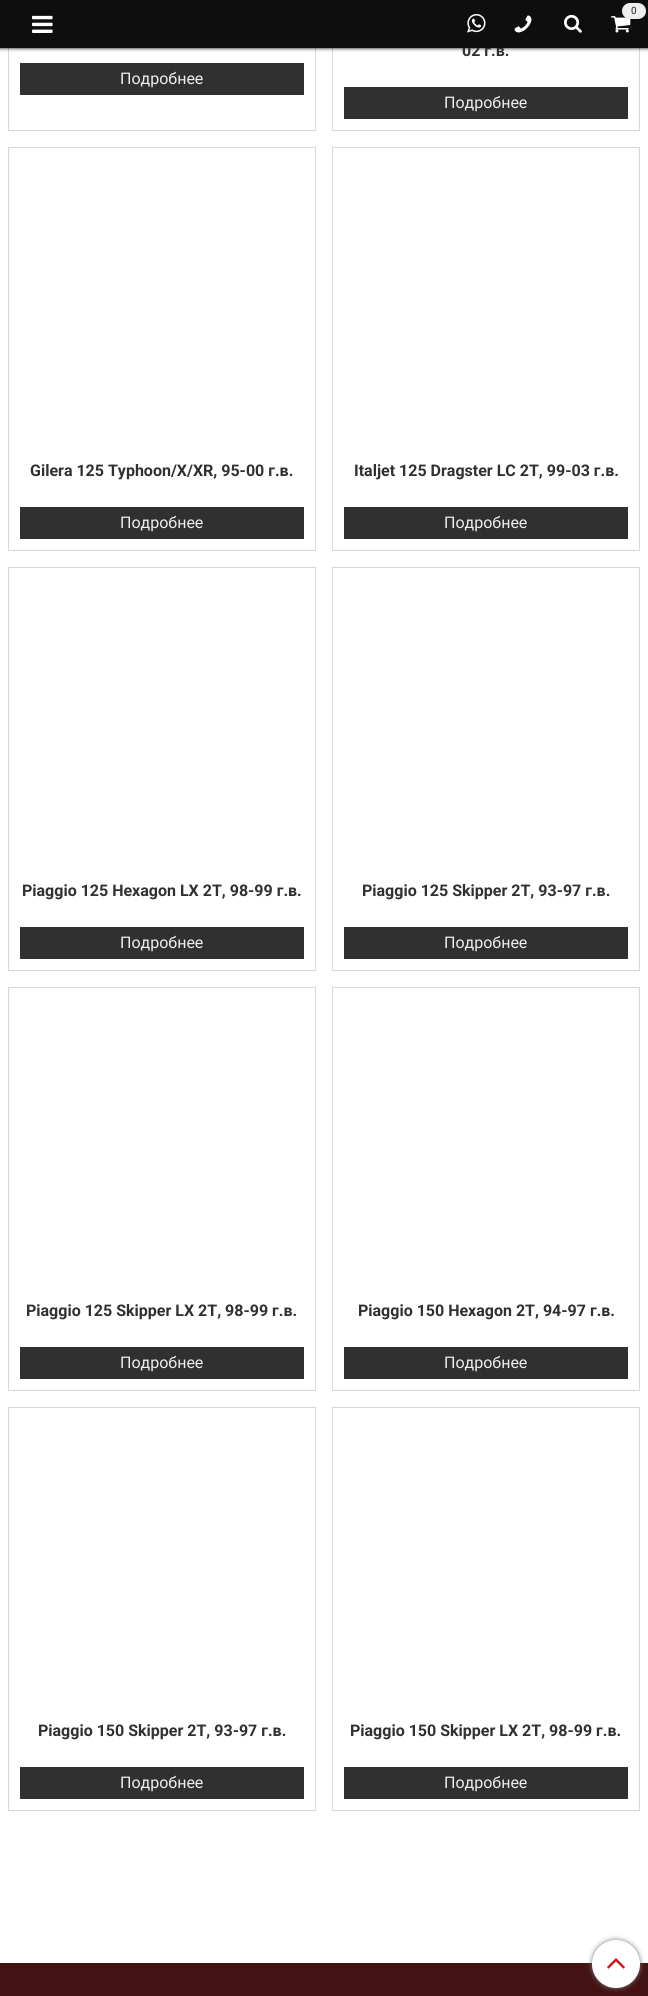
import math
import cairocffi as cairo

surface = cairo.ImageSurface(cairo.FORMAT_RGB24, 648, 1996)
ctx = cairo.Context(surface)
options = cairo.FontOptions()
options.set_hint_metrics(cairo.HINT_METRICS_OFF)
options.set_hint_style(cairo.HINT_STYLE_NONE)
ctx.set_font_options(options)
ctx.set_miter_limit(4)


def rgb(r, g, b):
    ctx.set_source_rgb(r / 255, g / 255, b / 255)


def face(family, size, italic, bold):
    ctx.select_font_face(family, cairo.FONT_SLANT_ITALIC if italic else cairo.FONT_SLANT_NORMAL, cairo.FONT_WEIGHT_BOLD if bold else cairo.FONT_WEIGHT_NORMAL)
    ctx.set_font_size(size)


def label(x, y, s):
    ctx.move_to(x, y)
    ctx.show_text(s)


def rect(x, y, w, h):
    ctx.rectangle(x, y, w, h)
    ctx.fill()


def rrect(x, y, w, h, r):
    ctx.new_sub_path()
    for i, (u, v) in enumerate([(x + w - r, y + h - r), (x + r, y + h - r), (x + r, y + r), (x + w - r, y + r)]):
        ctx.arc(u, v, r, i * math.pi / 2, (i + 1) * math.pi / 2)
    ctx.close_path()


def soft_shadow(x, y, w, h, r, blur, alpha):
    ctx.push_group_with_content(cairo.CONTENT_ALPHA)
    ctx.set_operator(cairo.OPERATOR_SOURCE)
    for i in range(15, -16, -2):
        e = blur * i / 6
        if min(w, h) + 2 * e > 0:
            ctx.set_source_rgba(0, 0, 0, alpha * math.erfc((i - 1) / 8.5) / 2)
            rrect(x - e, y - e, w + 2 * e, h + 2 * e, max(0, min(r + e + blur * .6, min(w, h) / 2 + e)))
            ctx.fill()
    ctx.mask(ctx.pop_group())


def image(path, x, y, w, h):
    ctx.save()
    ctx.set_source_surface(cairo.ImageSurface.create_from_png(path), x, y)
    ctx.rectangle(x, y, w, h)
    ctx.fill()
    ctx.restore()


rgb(255, 255, 255)
ctx.paint()
ctx.rectangle(8.5, -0.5, 307, 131)
rgb(215, 215, 215)
ctx.set_line_width(1)
ctx.stroke()
ctx.rectangle(332.5, -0.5, 307, 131)
ctx.stroke()
rgb(0, 0, 0)
soft_shadow(0, 0, 648, 48, 0, 2, 1)
face('Roboto', 16, 0, 1)
rgb(49, 48, 48)
label(462, 56, '02 г.в.')
rgb(14, 14, 14)
rect(0, 0, 648, 48)
image('image0.png', 611, 16, 20, 17)
rgb(238, 238, 238)
rrect(622, 3, 24, 16, 8)
ctx.fill()
face('Roboto', 10, 0, 0)
rgb(34, 34, 34)
label(631, 14, '0')
image('image1.png', 467, 14, 19, 19)
image('image2.png', 514, 15, 18, 18)
image('image3.png', 564, 14, 18, 19)
image('image4.png', 32, 15, 21, 18)
rgb(49, 48, 48)
rect(20, 63, 284, 32)
face('Roboto', 16, 0, 0)
rgb(238, 238, 238)
label(120, 84, 'Подробнее')
rgb(49, 48, 48)
rect(344, 87, 284, 32)
rgb(238, 238, 238)
label(444, 108, 'Подробнее')
ctx.rectangle(8.5, 147.5, 307, 403)
rgb(215, 215, 215)
ctx.stroke()
face('Roboto', 16, 0, 1)
rgb(49, 48, 48)
label(30, 476, 'Gilera 125 Typhoon/X/XR, 95-00 г.в.')
rect(20, 507, 284, 32)
face('Roboto', 16, 0, 0)
rgb(238, 238, 238)
label(120, 528, 'Подробнее')
ctx.rectangle(332.5, 147.5, 307, 403)
rgb(215, 215, 215)
ctx.stroke()
face('Roboto', 16, 0, 1)
rgb(49, 48, 48)
label(354, 476, 'Italjet 125 Dragster LC 2T, 99-03 г.в.')
rect(344, 507, 284, 32)
face('Roboto', 16, 0, 0)
rgb(238, 238, 238)
label(444, 528, 'Подробнее')
ctx.rectangle(8.5, 567.5, 307, 403)
rgb(215, 215, 215)
ctx.stroke()
face('Roboto', 16, 0, 1)
rgb(49, 48, 48)
label(22, 896, 'Piaggio 125 Hexagon LX 2T, 98-99 г.в.')
rect(20, 927, 284, 32)
face('Roboto', 16, 0, 0)
rgb(238, 238, 238)
label(120, 948, 'Подробнее')
ctx.rectangle(332.5, 567.5, 307, 403)
rgb(215, 215, 215)
ctx.stroke()
face('Roboto', 16, 0, 1)
rgb(49, 48, 48)
label(362, 896, 'Piaggio 125 Skipper 2T, 93-97 г.в.')
rect(344, 927, 284, 32)
face('Roboto', 16, 0, 0)
rgb(238, 238, 238)
label(444, 948, 'Подробнее')
ctx.rectangle(8.5, 987.5, 307, 403)
rgb(215, 215, 215)
ctx.stroke()
face('Roboto', 16, 0, 1)
rgb(49, 48, 48)
label(26, 1316, 'Piaggio 125 Skipper LX 2T, 98-99 г.в.')
rect(20, 1347, 284, 32)
face('Roboto', 16, 0, 0)
rgb(238, 238, 238)
label(120, 1368, 'Подробнее')
ctx.rectangle(332.5, 987.5, 307, 403)
rgb(215, 215, 215)
ctx.stroke()
face('Roboto', 16, 0, 1)
rgb(49, 48, 48)
label(358, 1316, 'Piaggio 150 Hexagon 2T, 94-97 г.в.')
rect(344, 1347, 284, 32)
face('Roboto', 16, 0, 0)
rgb(238, 238, 238)
label(444, 1368, 'Подробнее')
ctx.rectangle(8.5, 1407.5, 307, 403)
rgb(215, 215, 215)
ctx.stroke()
face('Roboto', 16, 0, 1)
rgb(49, 48, 48)
label(38, 1736, 'Piaggio 150 Skipper 2T, 93-97 г.в.')
rect(20, 1767, 284, 32)
face('Roboto', 16, 0, 0)
rgb(238, 238, 238)
label(120, 1788, 'Подробнее')
ctx.rectangle(332.5, 1407.5, 307, 403)
rgb(215, 215, 215)
ctx.stroke()
face('Roboto', 16, 0, 1)
rgb(49, 48, 48)
label(350, 1736, 'Piaggio 150 Skipper LX 2T, 98-99 г.в.')
rect(344, 1767, 284, 32)
face('Roboto', 16, 0, 0)
rgb(238, 238, 238)
label(444, 1788, 'Подробнее')
rgb(68, 18, 19)
rect(0, 1963, 648, 33)
rgb(119, 119, 119)
soft_shadow(592, 1940, 48, 48, 24, 2.5, 1)
rgb(255, 255, 255)
ctx.arc(616, 1964, 24, 0, 2 * math.pi)
ctx.fill()
image('image5.png', 607, 1958, 18, 11)
surface.write_to_png('render.png')
